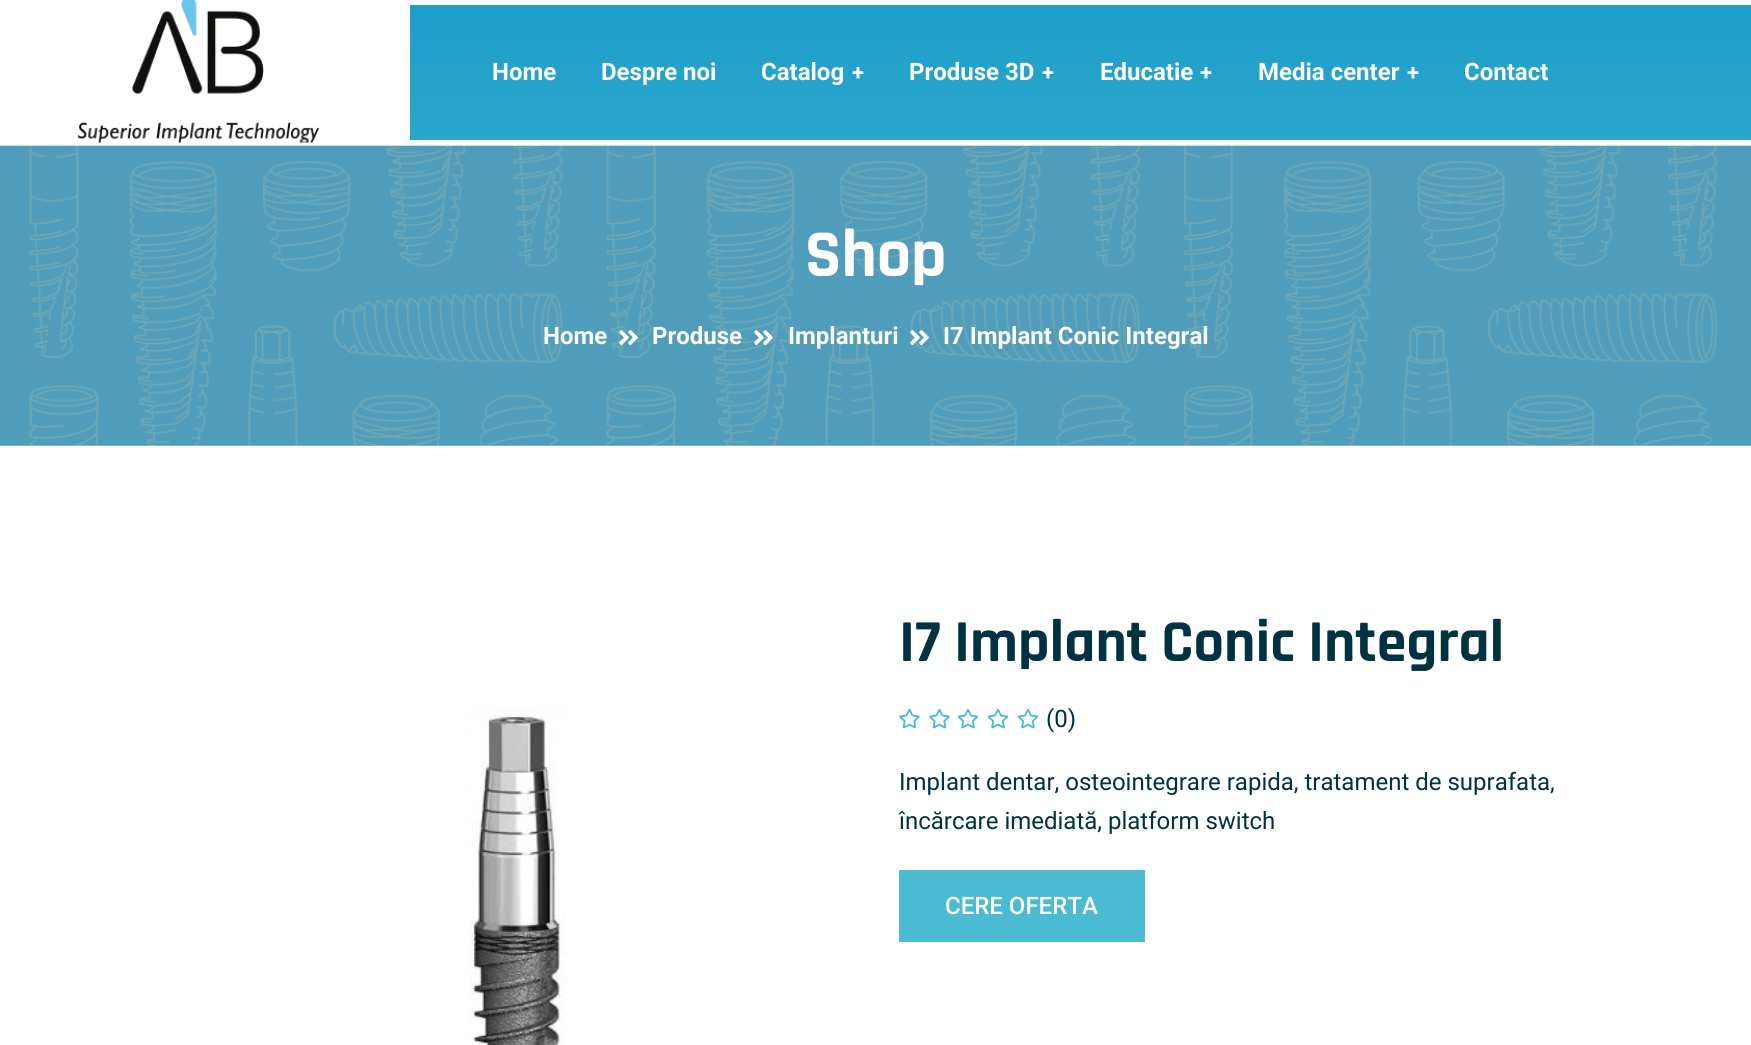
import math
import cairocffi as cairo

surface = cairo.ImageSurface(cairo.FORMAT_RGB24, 1751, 1045)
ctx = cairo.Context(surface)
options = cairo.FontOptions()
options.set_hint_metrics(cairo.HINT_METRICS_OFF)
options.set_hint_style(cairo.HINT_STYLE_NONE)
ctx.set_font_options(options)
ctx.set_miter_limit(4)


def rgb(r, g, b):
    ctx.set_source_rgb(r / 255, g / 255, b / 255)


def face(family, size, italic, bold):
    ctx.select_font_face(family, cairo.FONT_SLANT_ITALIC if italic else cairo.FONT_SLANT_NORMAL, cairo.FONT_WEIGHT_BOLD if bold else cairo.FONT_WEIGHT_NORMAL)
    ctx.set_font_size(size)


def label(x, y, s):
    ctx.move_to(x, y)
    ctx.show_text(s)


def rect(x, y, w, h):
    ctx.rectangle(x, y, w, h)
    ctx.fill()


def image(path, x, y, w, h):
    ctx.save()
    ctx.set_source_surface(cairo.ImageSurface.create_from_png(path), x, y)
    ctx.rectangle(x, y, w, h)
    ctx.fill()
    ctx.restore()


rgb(255, 255, 255)
ctx.paint()
rgb(179, 194, 198)
rect(0, 445, 1751, 1)
image('image0.png', 77, 0, 243, 143)
gradient = cairo.LinearGradient(1081, 140, 1081, 4.5)
gradient.add_color_stop_rgba(0, 0.165, 0.651, 0.8, 1)
gradient.add_color_stop_rgba(1, 0.114, 0.62, 0.792, 1)
ctx.set_source(gradient)
rect(410, 5, 1341, 135)
face('Roboto', 24, 0, 1)
rgb(255, 255, 255)
label(492, 80, 'Home')
label(601, 80, 'Despre noi')
label(761, 80, 'Catalog')
face('Roboto', 22, 0, 1)
label(852, 80, '+')
face('Roboto', 24, 0, 1)
label(909, 80, 'Produse 3D')
face('Roboto', 22, 0, 1)
label(1042, 80, '+')
face('Roboto', 24, 0, 1)
label(1100, 80, 'Educatie')
face('Roboto', 22, 0, 1)
label(1200, 80, '+')
face('Roboto', 24, 0, 1)
label(1258, 80, 'Media center')
face('Roboto', 22, 0, 1)
label(1407, 80, '+')
face('Roboto', 24, 0, 1)
label(1464, 80, 'Contact')
image('image1.png', 0, 145, 1751, 301)
face('Rajdhani', 67.5, 0, 1)
label(805, 276, 'Shop')
face('Roboto', 24, 0, 1)
label(543, 344, 'Home')
image('image2.png', 619, 330, 19, 15)
label(652, 344, 'Produse')
image('image3.png', 754, 330, 19, 15)
label(788, 344, 'Implanturi')
image('image4.png', 910, 330, 19, 15)
label(943, 344, 'I7 Implant Conic Integral')
image('image5.png', 468, 708, 99, 337)
face('Rajdhani', 60, 0, 1)
rgb(0, 50, 66)
label(899, 661, 'I7 Implant Conic Integral')
image('image6.png', 899, 709, 21, 20)
image('image6.png', 929, 709, 21, 20)
image('image7.png', 957, 709, 22, 20)
image('image7.png', 987, 709, 22, 20)
image('image7.png', 1017, 709, 22, 20)
face('Roboto', 24, 0, 0)
label(1046, 727, '(0)')
label(899, 790, 'Implant dentar, osteointegrare rapida, tratament de suprafata,')
label(899, 829, 'încărcare imediată, platform switch')
rgb(74, 187, 211)
rect(899, 870, 246, 72)
face('Roboto Medium', 24, 0, 0)
rgb(255, 255, 255)
label(945, 914, 'CERE OFERTA')
surface.write_to_png('render.png')
